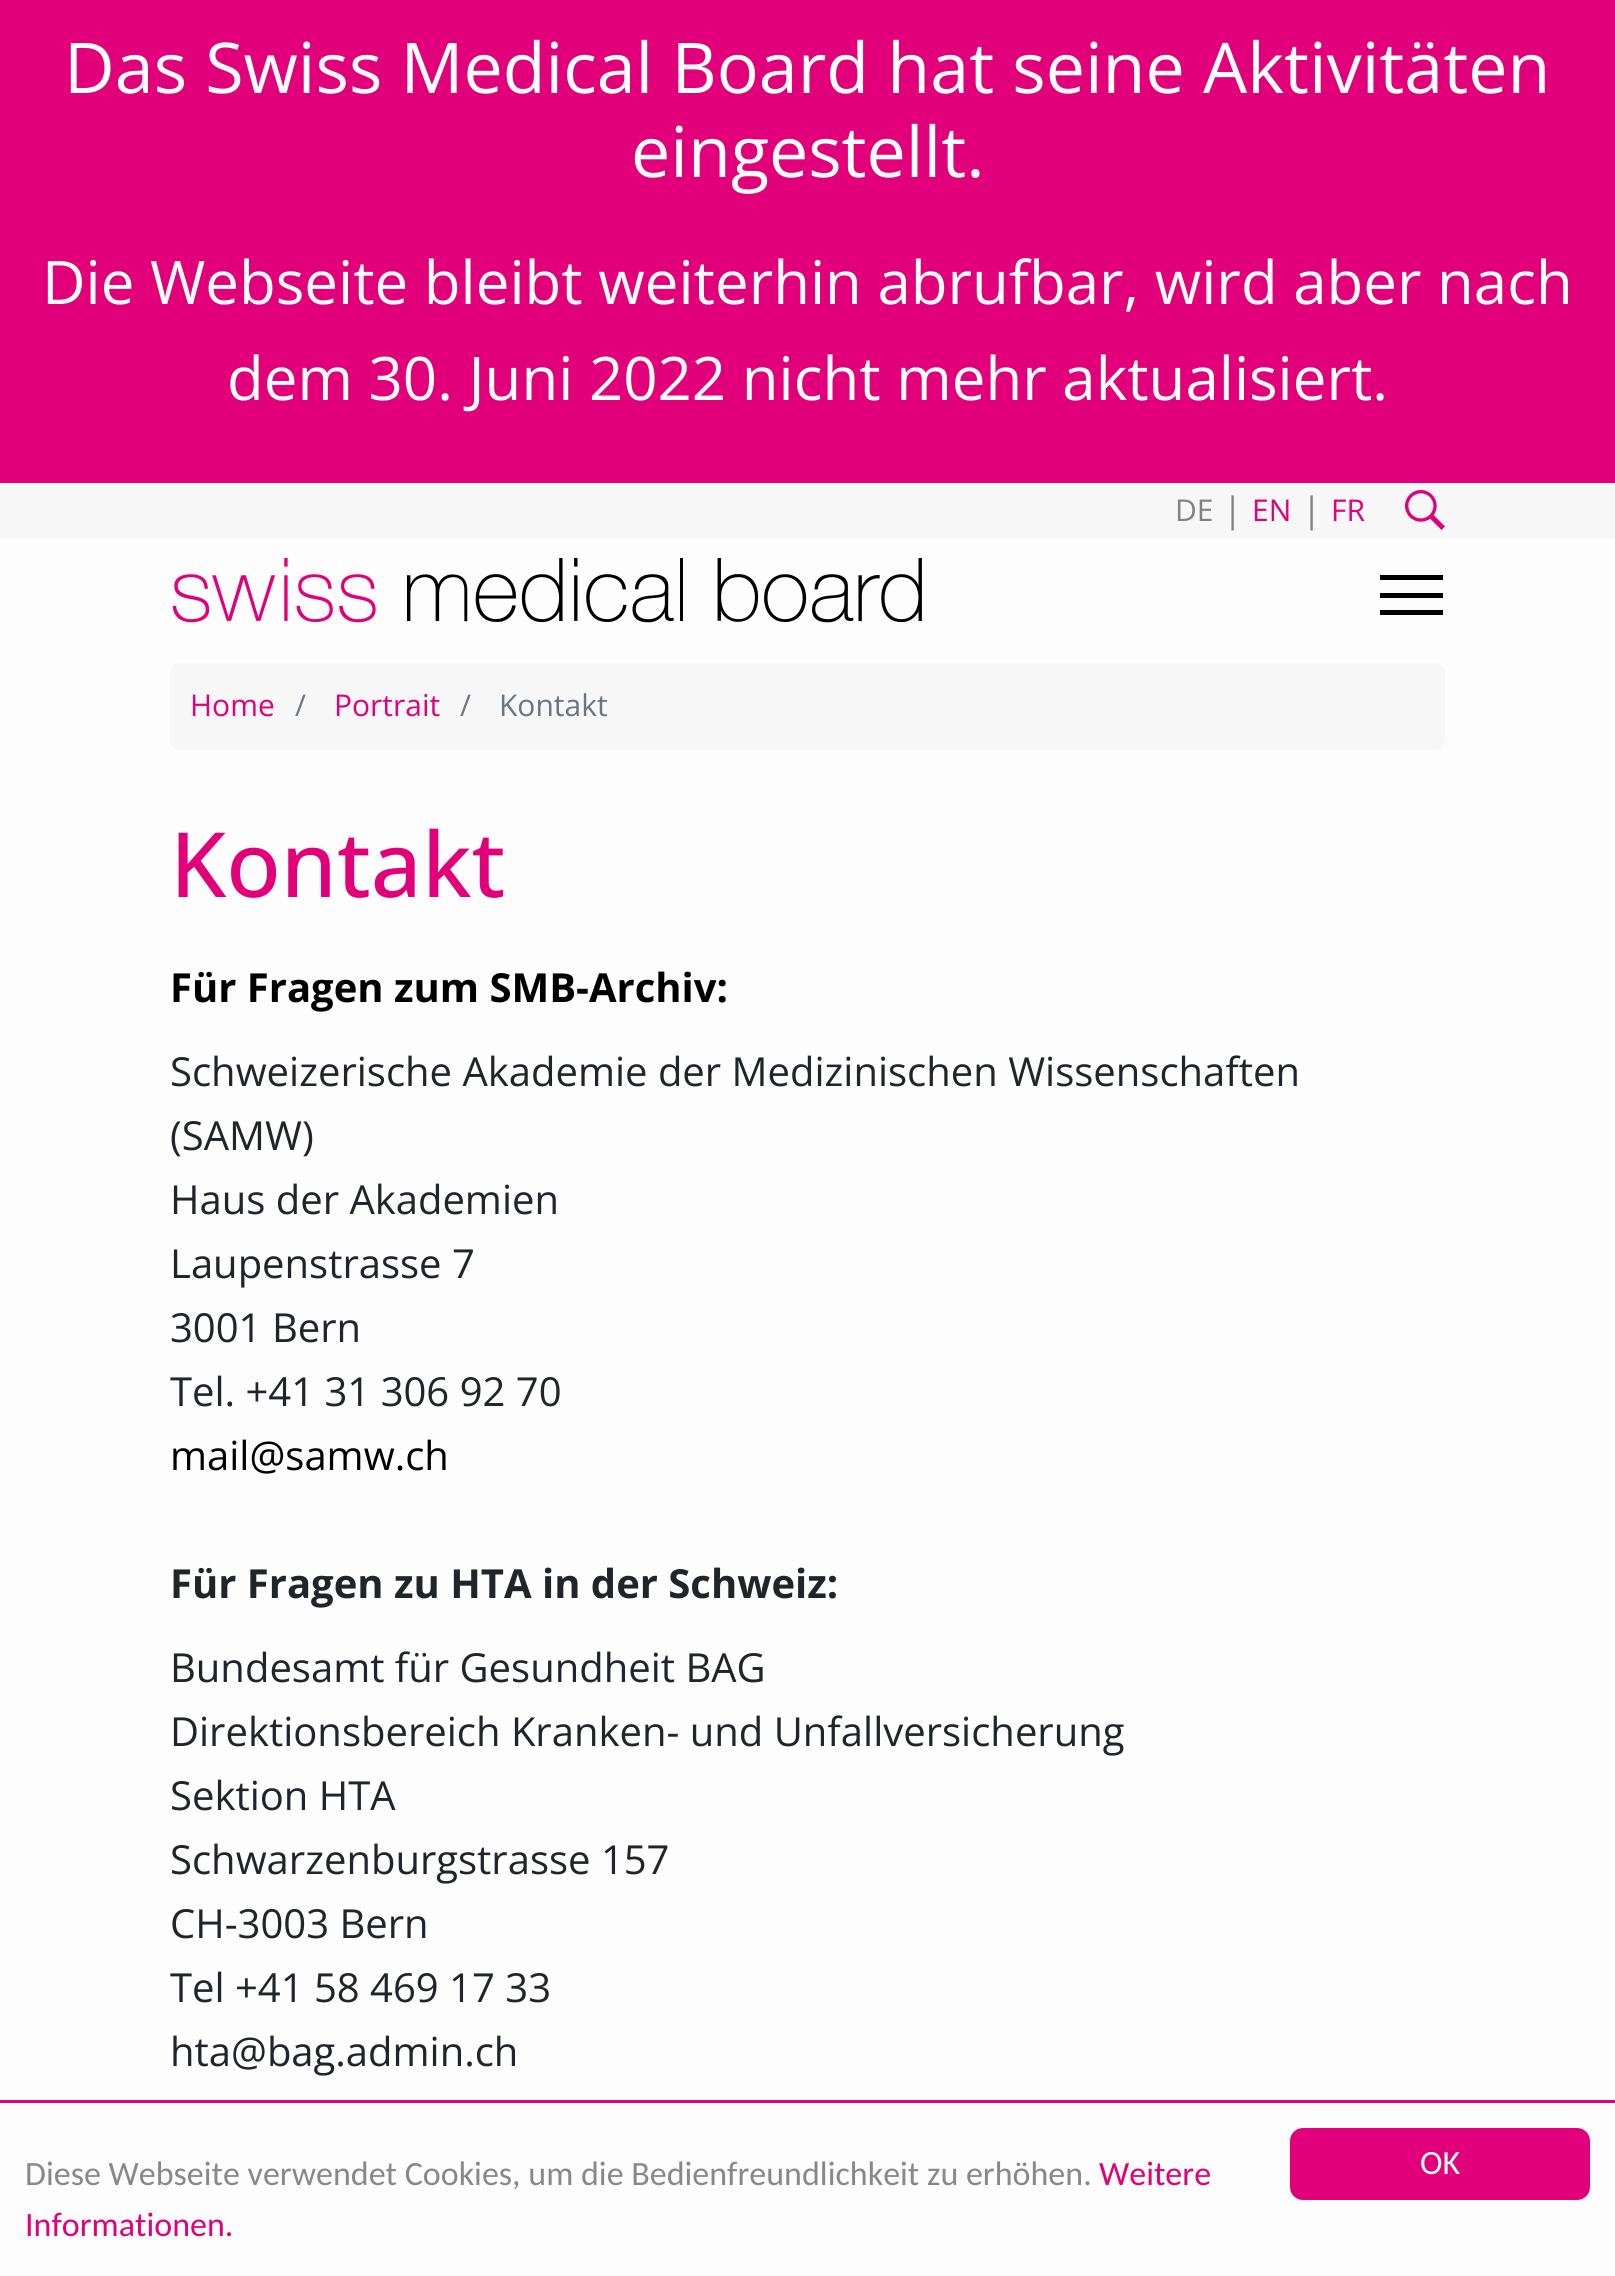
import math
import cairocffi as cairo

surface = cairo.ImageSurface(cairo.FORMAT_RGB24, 1615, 2276)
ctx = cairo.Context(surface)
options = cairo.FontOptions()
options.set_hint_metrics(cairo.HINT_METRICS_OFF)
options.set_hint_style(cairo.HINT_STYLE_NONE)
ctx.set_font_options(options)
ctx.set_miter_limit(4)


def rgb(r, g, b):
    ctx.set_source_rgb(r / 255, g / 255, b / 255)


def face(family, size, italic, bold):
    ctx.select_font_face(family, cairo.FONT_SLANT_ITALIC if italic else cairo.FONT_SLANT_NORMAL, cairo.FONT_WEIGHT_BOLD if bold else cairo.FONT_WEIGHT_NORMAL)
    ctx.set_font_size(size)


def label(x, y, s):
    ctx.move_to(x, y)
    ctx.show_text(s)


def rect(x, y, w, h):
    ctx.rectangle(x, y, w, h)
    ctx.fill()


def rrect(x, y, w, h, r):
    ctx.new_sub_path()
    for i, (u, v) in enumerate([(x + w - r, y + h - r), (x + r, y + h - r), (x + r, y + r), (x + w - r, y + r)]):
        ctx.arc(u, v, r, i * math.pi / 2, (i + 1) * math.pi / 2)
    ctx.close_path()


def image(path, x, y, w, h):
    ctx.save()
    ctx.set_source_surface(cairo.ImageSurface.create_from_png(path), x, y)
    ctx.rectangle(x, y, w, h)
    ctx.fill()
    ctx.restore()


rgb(253, 253, 253)
ctx.paint()
rgb(226, 0, 122)
rect(0, 0, 1615, 483)
rgb(247, 247, 247)
rect(0, 483, 1615, 55)
face('Open Sans', 70, 0, 0)
rgb(255, 255, 255)
label(64, 93, 'Das Swiss Medical Board hat seine Aktivitäten')
label(631, 177, 'eingestellt.')
face('Open Sans', 60, 0, 0)
label(42, 304, 'Die Webseite bleibt weiterhin abrufbar, wird aber nach')
label(227, 400, 'dem 30. Juni 2022 nicht mehr aktualisiert.')
face('Open Sans', 30, 0, 0)
rgb(130, 130, 130)
label(1175, 521, 'DE')
face('Open Sans', 35, 0, 0)
label(1223, 522, '|')
face('Open Sans', 30, 0, 0)
rgb(226, 0, 122)
label(1252, 521, 'EN')
face('Open Sans', 35, 0, 0)
rgb(130, 130, 130)
label(1302, 522, '|')
face('Open Sans', 30, 0, 0)
rgb(226, 0, 122)
label(1331, 521, 'FR')
image('image0.png', 1405, 490, 40, 40)
image('image1.png', 173, 558, 749, 65)
rgb(2, 2, 2)
rect(1380, 575, 63, 5)
rect(1380, 593, 63, 5)
rect(1380, 610, 63, 5)
rgb(247, 247, 247)
rrect(170, 663, 1275, 87, 10)
ctx.fill()
rgb(226, 0, 122)
label(190, 716, 'Home')
rgb(108, 117, 125)
label(295, 716, '/')
rgb(226, 0, 122)
label(334, 716, 'Portrait')
rgb(108, 117, 125)
label(460, 716, '/')
label(499, 716, 'Kontakt')
face('Open Sans Medium', 90, 0, 0)
rgb(226, 0, 122)
label(170, 897, 'Kontakt')
face('Open Sans', 40, 0, 1)
rgb(0, 0, 0)
label(170, 1002, 'Für Fragen zum SMB-Archiv:')
face('Open Sans', 40, 0, 0)
rgb(33, 37, 41)
label(170, 1086, 'Schweizerische Akademie der Medizinischen Wissenschaften')
label(170, 1150, '(SAMW)')
label(170, 1214, 'Haus der Akademien')
label(170, 1278, 'Laupenstrasse 7')
label(170, 1342, '3001 Bern')
label(170, 1406, 'Tel. +41 31 306 92 70')
rgb(0, 0, 0)
label(170, 1470, 'mail@samw.ch')
face('Open Sans', 40, 0, 1)
rgb(33, 37, 41)
label(170, 1598, 'Für Fragen zu HTA in der Schweiz:')
face('Open Sans', 40, 0, 0)
label(170, 1682, 'Bundesamt für Gesundheit BAG')
label(170, 1746, 'Direktionsbereich Kranken- und Unfallversicherung')
label(170, 1810, 'Sektion HTA')
label(170, 1874, 'Schwarzenburgstrasse 157')
label(170, 1938, 'CH-3003 Bern')
label(170, 2002, 'Tel +41 58 469 17 33')
label(170, 2066, 'hta@bag.admin.ch')
rgb(226, 0, 122)
rect(0, 2100, 1615, 3)
face('Carlito', 34, 0, 0)
rgb(136, 136, 136)
label(25, 2185, 'Diese Webseite verwendet Cookies, um die Bedienfreundlichkeit zu erhöhen.')
rgb(226, 0, 122)
label(1099, 2185, 'Weitere')
label(25, 2236, 'Informationen.')
rrect(1290, 2128, 300, 72, 13)
ctx.fill()
rgb(255, 255, 255)
label(1420, 2174, 'OK')
surface.write_to_png('render.png')
